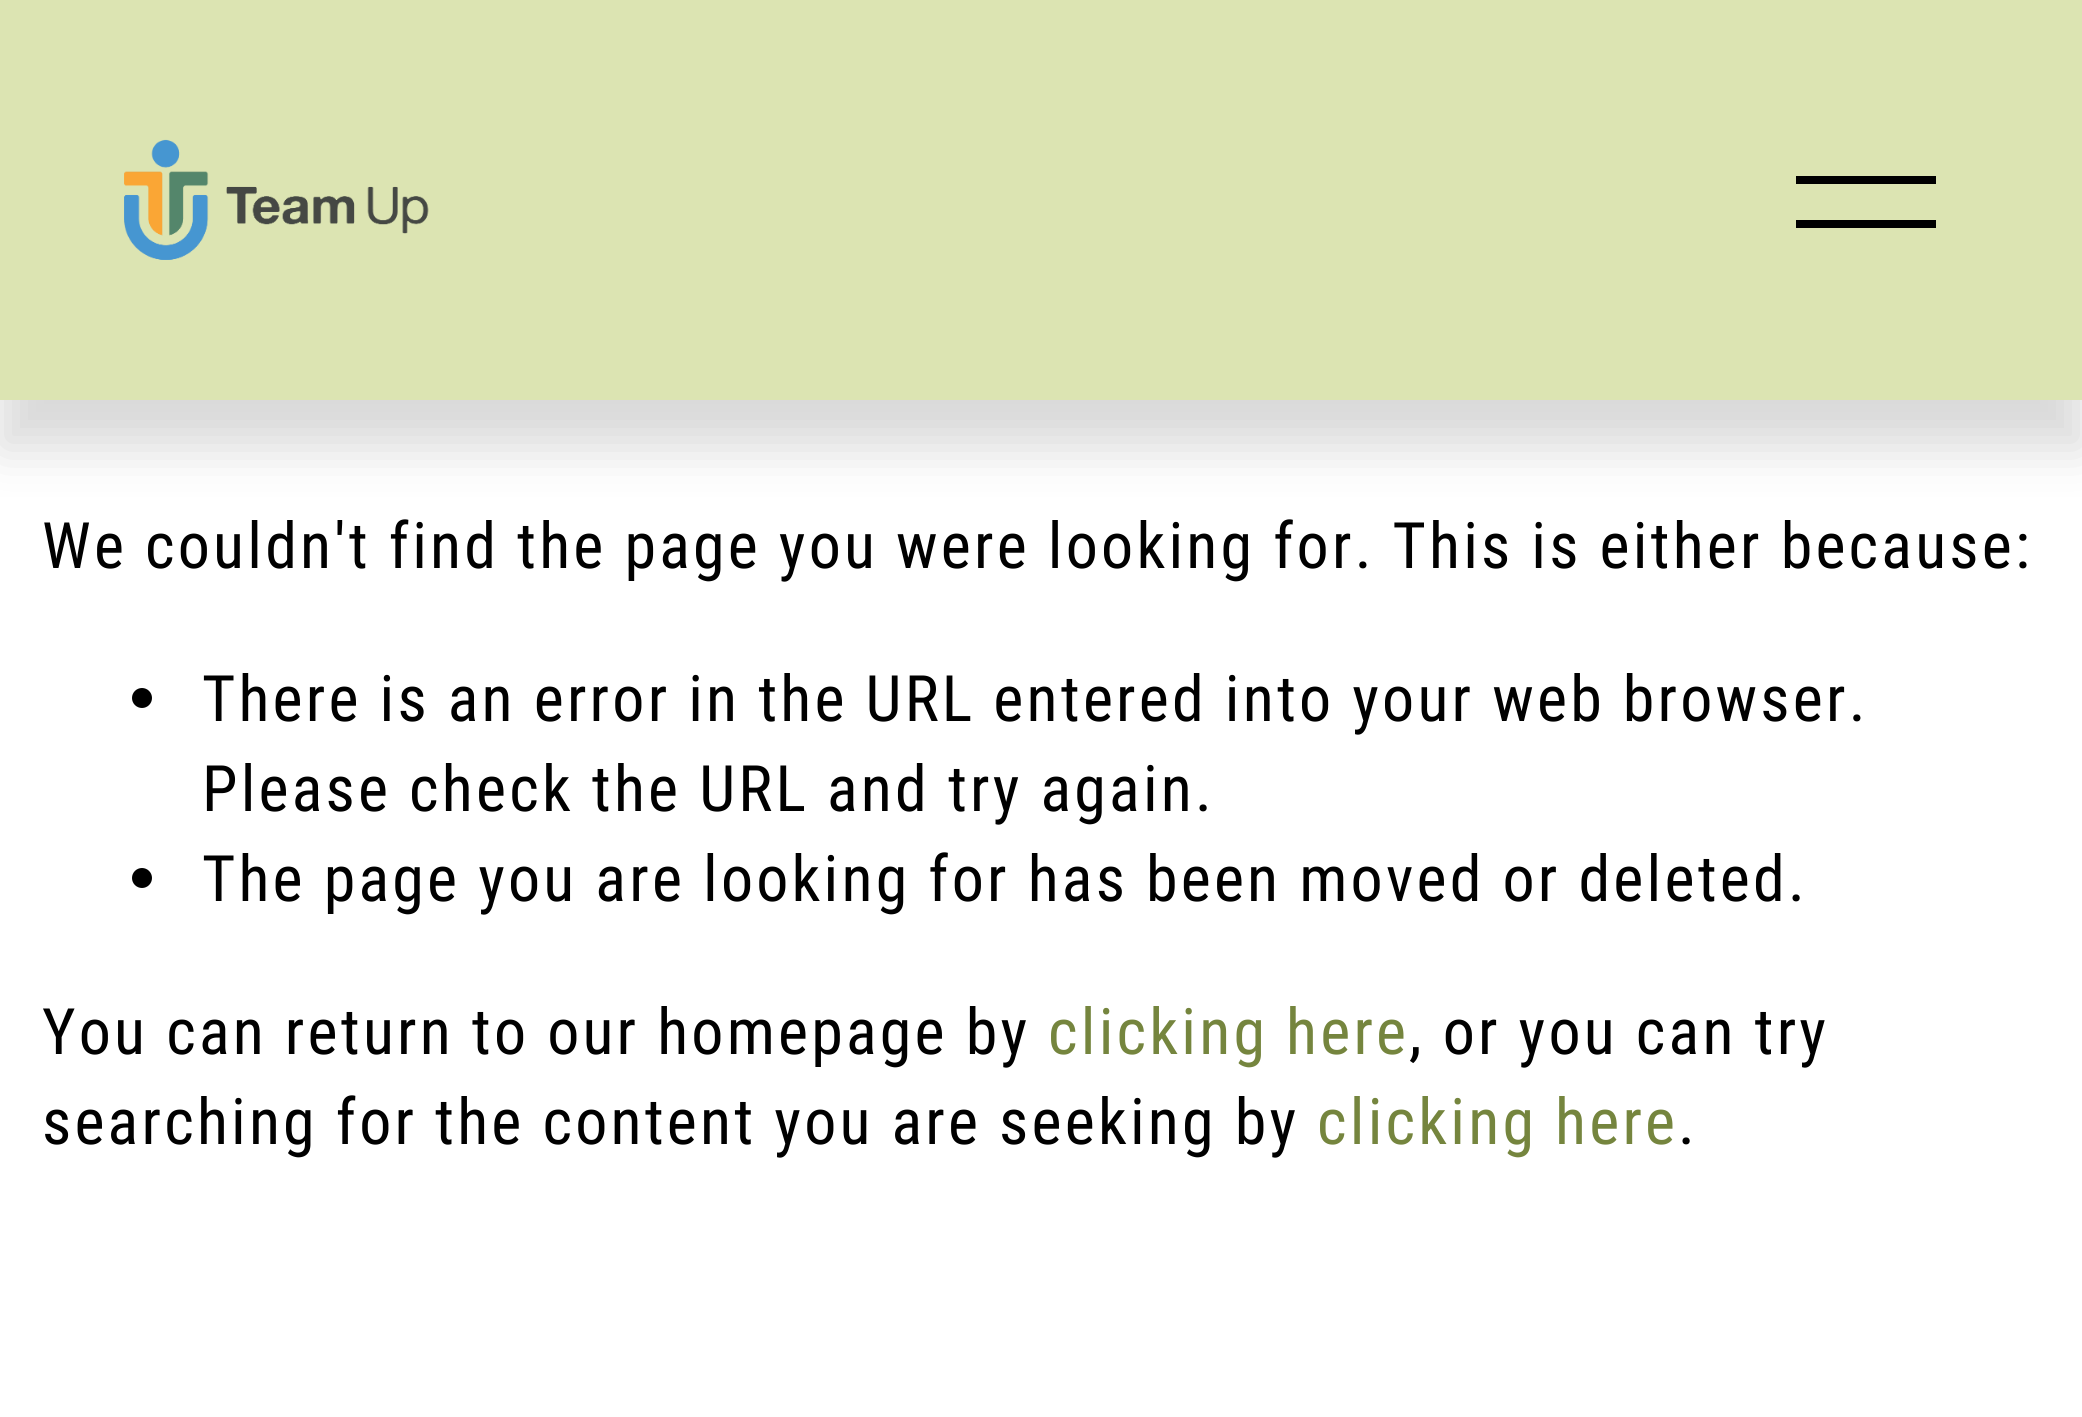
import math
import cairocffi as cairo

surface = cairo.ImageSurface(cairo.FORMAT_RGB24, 2082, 1417)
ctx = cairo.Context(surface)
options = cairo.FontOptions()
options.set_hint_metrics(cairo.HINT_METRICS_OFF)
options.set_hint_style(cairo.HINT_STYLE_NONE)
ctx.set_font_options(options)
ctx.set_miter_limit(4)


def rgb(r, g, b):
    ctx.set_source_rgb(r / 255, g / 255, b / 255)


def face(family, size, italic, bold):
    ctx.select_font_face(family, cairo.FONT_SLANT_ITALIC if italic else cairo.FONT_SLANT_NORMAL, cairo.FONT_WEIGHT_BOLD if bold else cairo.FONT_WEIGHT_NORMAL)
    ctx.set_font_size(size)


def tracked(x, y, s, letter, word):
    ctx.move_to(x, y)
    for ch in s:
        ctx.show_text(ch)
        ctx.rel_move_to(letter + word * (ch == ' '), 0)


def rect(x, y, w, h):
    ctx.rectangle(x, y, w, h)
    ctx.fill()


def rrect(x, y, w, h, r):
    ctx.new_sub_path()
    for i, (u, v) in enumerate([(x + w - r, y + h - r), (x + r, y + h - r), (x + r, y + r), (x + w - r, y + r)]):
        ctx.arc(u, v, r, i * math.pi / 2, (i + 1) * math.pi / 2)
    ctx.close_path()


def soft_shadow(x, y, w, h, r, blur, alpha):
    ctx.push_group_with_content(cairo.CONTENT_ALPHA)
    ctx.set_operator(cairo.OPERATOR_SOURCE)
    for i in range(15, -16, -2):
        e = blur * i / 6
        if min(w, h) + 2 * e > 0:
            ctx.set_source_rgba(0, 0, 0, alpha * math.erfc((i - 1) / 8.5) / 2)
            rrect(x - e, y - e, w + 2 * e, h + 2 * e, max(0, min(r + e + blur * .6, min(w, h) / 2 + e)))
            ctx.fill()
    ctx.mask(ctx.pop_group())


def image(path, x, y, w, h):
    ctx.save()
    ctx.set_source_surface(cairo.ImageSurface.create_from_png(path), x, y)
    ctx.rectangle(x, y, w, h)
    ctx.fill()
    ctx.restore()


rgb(255, 255, 255)
ctx.paint()
rgb(220, 228, 178)
rect(0, 0, 2082, 400)
ctx.save()
ctx.rectangle(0, 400, 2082, 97)
ctx.clip()
rgb(217, 217, 217)
soft_shadow(0, 48, 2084, 400, 0, 24, 1)
ctx.restore()
image('image0.png', 124, 139, 305, 121)
rgb(0, 0, 0)
rect(1796, 176, 140, 8)
rect(1796, 220, 140, 8)
face('Roboto Condensed', 64, 0, 0)
tracked(42, 568, 'We couldn\'t find the page you were looking for. This is either because:', 3.2, 0)
ctx.new_path()
ctx.arc(142, 698, 10, 0, 2 * math.pi)
ctx.fill()
tracked(202, 721, 'There is an error in the URL entered into your web browser.', 3.2, 0)
tracked(202, 811, 'Please check the URL and try again.', 3.2, 0)
ctx.new_path()
ctx.arc(142, 878, 10, 0, 2 * math.pi)
ctx.fill()
tracked(202, 901, 'The page you are looking for has been moved or deleted.', 3.2, 0)
tracked(42, 1054, 'You can return to our homepage by', 3.2, 0)
rgb(117, 133, 62)
tracked(1048, 1054, 'clicking here', 3.2, 0)
rgb(0, 0, 0)
tracked(1409, 1054, ', or you can try', 3.2, 0)
tracked(42, 1144, 'searching for the content you are seeking by', 3.2, 0)
rgb(117, 133, 62)
tracked(1317, 1144, 'clicking here', 3.2, 0)
rgb(0, 0, 0)
tracked(1678, 1144, '.', 3.2, 0)
surface.write_to_png('render.png')
